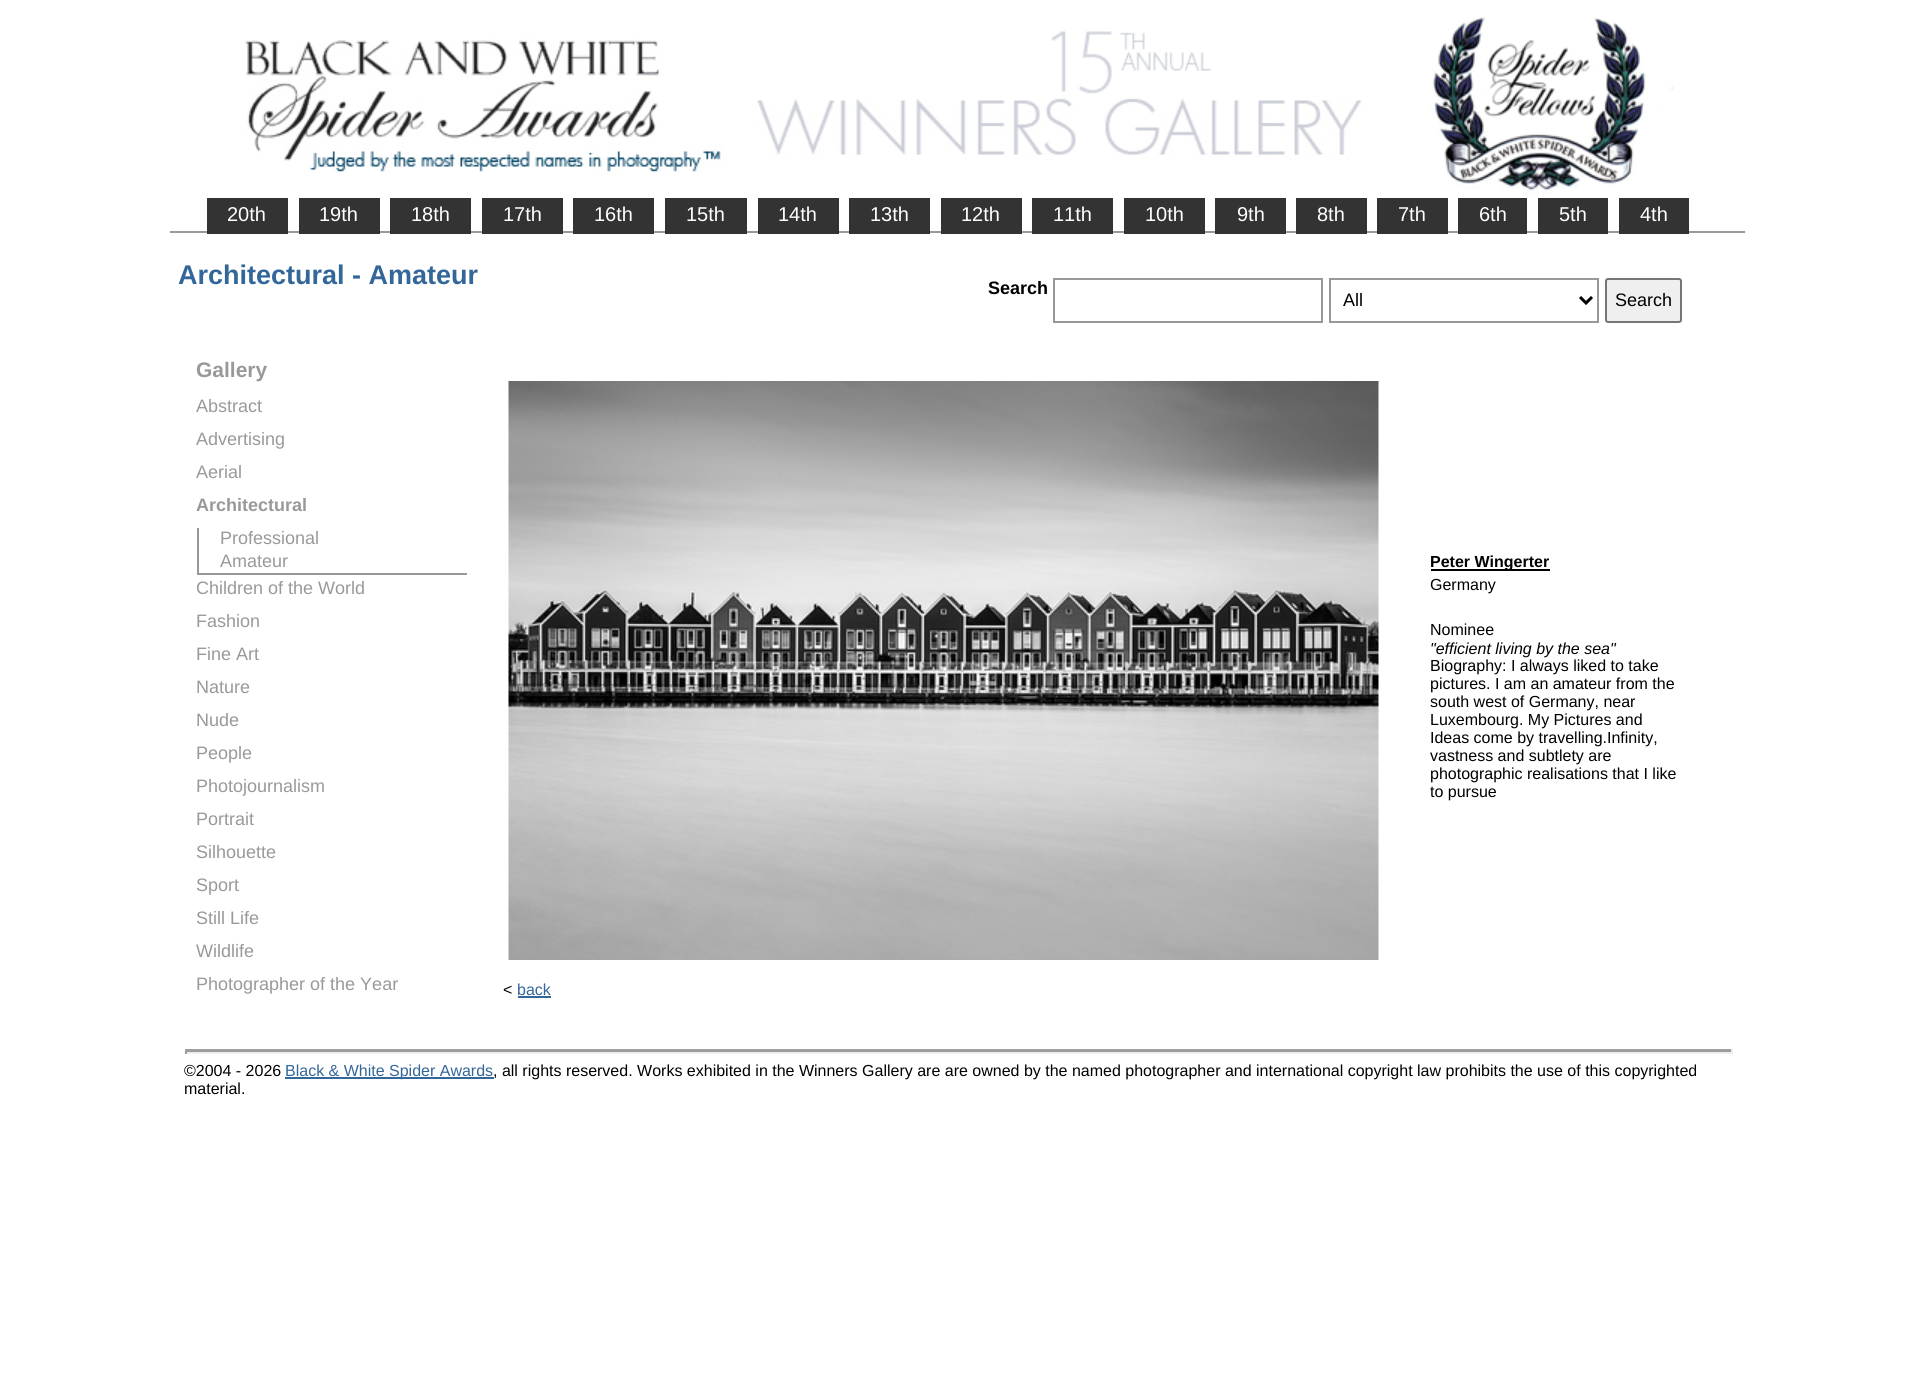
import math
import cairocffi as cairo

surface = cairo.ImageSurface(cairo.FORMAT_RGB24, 1912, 1397)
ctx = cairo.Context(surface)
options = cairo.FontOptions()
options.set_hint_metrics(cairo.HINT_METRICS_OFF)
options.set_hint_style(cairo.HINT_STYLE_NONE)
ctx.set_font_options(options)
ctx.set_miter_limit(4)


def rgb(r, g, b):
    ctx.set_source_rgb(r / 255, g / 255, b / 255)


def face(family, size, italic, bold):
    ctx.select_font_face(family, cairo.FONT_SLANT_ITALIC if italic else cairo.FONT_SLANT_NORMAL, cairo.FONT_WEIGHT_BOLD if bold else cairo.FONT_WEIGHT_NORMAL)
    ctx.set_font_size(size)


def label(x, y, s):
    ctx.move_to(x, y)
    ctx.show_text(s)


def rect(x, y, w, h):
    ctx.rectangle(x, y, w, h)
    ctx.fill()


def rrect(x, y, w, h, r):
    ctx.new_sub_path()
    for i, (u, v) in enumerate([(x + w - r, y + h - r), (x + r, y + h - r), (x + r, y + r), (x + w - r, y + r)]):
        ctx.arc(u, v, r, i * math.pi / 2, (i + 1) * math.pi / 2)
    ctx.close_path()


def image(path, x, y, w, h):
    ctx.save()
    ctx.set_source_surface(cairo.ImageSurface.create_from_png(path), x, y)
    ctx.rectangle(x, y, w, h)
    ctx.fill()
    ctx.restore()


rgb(255, 255, 255)
ctx.paint()
image('image0.png', 245, 17, 1429, 178)
rgb(153, 153, 153)
rect(170, 231, 1575, 2)
rgb(51, 51, 51)
rect(207, 198, 81, 36)
face('Liberation Sans', 20, 0, 0)
rgb(255, 255, 255)
label(227, 221, '20th')
rgb(51, 51, 51)
rect(299, 198, 81, 36)
rgb(255, 255, 255)
label(319, 221, '19th')
rgb(51, 51, 51)
rect(390, 198, 81, 36)
rgb(255, 255, 255)
label(411, 221, '18th')
rgb(51, 51, 51)
rect(482, 198, 81, 36)
rgb(255, 255, 255)
label(503, 221, '17th')
rgb(51, 51, 51)
rect(573, 198, 81, 36)
rgb(255, 255, 255)
label(594, 221, '16th')
rgb(51, 51, 51)
rect(665, 198, 82, 36)
rgb(255, 255, 255)
label(686, 221, '15th')
rgb(51, 51, 51)
rect(758, 198, 81, 36)
rgb(255, 255, 255)
label(778, 221, '14th')
rgb(51, 51, 51)
rect(849, 198, 81, 36)
rgb(255, 255, 255)
label(870, 221, '13th')
rgb(51, 51, 51)
rect(941, 198, 81, 36)
rgb(255, 255, 255)
label(961, 221, '12th')
rgb(51, 51, 51)
rect(1032, 198, 81, 36)
rgb(255, 255, 255)
label(1053, 221, '11th')
rgb(51, 51, 51)
rect(1124, 198, 81, 36)
rgb(255, 255, 255)
label(1145, 221, '10th')
rgb(51, 51, 51)
rect(1215, 198, 71, 36)
rgb(255, 255, 255)
label(1237, 221, '9th')
rgb(51, 51, 51)
rect(1296, 198, 71, 36)
rgb(255, 255, 255)
label(1317, 221, '8th')
rgb(51, 51, 51)
rect(1377, 198, 71, 36)
rgb(255, 255, 255)
label(1398, 221, '7th')
rgb(51, 51, 51)
rect(1458, 198, 69, 36)
rgb(255, 255, 255)
label(1479, 221, '6th')
rgb(51, 51, 51)
rect(1538, 198, 70, 36)
rgb(255, 255, 255)
label(1559, 221, '5th')
rgb(51, 51, 51)
rect(1619, 198, 70, 36)
rgb(255, 255, 255)
label(1640, 221, '4th')
face('Liberation Sans', 27, 0, 1)
rgb(51, 102, 153)
label(178, 284, 'Architectural - Amateur')
face('Liberation Sans', 18, 0, 1)
rgb(0, 0, 0)
label(988, 294, 'Search')
ctx.rectangle(1054, 279, 268, 43)
rgb(153, 153, 153)
ctx.stroke()
ctx.rectangle(1330, 279, 268, 43)
ctx.stroke()
ctx.new_path()
ctx.move_to(1580, 297)
ctx.line_to(1586, 303)
ctx.line_to(1592, 297)
rgb(0, 0, 0)
ctx.set_line_width(3)
ctx.stroke()
face('Liberation Sans', 18, 0, 0)
label(1343, 306, 'All')
rgb(239, 239, 239)
rrect(1606, 279, 75, 43, 2)
ctx.fill_preserve()
rgb(118, 118, 118)
ctx.set_line_width(2)
ctx.stroke()
rgb(0, 0, 0)
label(1615, 306, 'Search')
face('Liberation Sans', 21, 0, 1)
rgb(153, 153, 153)
label(196, 377, 'Gallery')
face('Liberation Sans', 18, 0, 0)
label(196, 412, 'Abstract')
label(196, 445, 'Advertising')
label(196, 478, 'Aerial')
face('Liberation Sans', 18, 0, 1)
label(196, 511, 'Architectural')
rect(197, 573, 270, 2)
rect(197, 528, 2, 47)
face('Liberation Sans', 18, 0, 0)
label(220, 544, 'Professional')
label(220, 567, 'Amateur')
label(196, 594, 'Children of the World')
label(196, 627, 'Fashion')
label(196, 660, 'Fine Art')
label(196, 693, 'Nature')
label(196, 726, 'Nude')
label(196, 759, 'People')
label(196, 792, 'Photojournalism')
label(196, 825, 'Portrait')
label(196, 858, 'Silhouette')
label(196, 891, 'Sport')
label(196, 924, 'Still Life')
label(196, 957, 'Wildlife')
label(196, 990, 'Photographer of the Year')
image('image1.png', 508, 381, 871, 579)
rgb(0, 0, 0)
rect(1431, 569, 119, 2)
face('Liberation Sans', 16, 0, 1)
label(1430, 567, 'Peter Wingerter')
face('Liberation Sans', 16, 0, 0)
label(1430, 590, 'Germany')
label(1430, 635, 'Nominee')
face('Liberation Sans', 16, 1, 0)
label(1430, 654, '"efficient living by the sea"')
face('Liberation Sans', 16, 0, 0)
label(1430, 671, 'Biography: I always liked to take')
label(1430, 689, 'pictures. I am an amateur from the')
label(1430, 707, 'south west of Germany, near')
label(1430, 725, 'Luxembourg. My Pictures and')
label(1430, 743, 'Ideas come by travelling.Infinity,')
label(1430, 761, 'vastness and subtlety are')
label(1430, 779, 'photographic realisations that I like')
label(1430, 797, 'to pursue')
label(503, 995, '<')
rgb(51, 102, 153)
label(517, 995, 'back')
rect(518, 996, 33, 2)
rgb(153, 153, 153)
rect(185, 1051, 1548, 1)
rgb(159, 159, 159)
rect(185, 1049, 1548, 2)
rgb(238, 238, 238)
rect(1731, 1049, 2, 5)
rect(185, 1052, 1548, 2)
rgb(159, 159, 159)
rect(185, 1049, 2, 5)
rgb(0, 0, 0)
label(184, 1076, '©2004 - 2026')
rgb(51, 102, 153)
rect(285, 1077, 209, 2)
label(285, 1076, 'Black & White Spider Awards')
rgb(0, 0, 0)
label(493, 1076, ', all rights reserved. Works exhibited in the Winners Gallery are are owned by the named photographer and international copyright law prohibits the use of this copyrighted')
label(184, 1094, 'material.')
surface.write_to_png('render.png')
